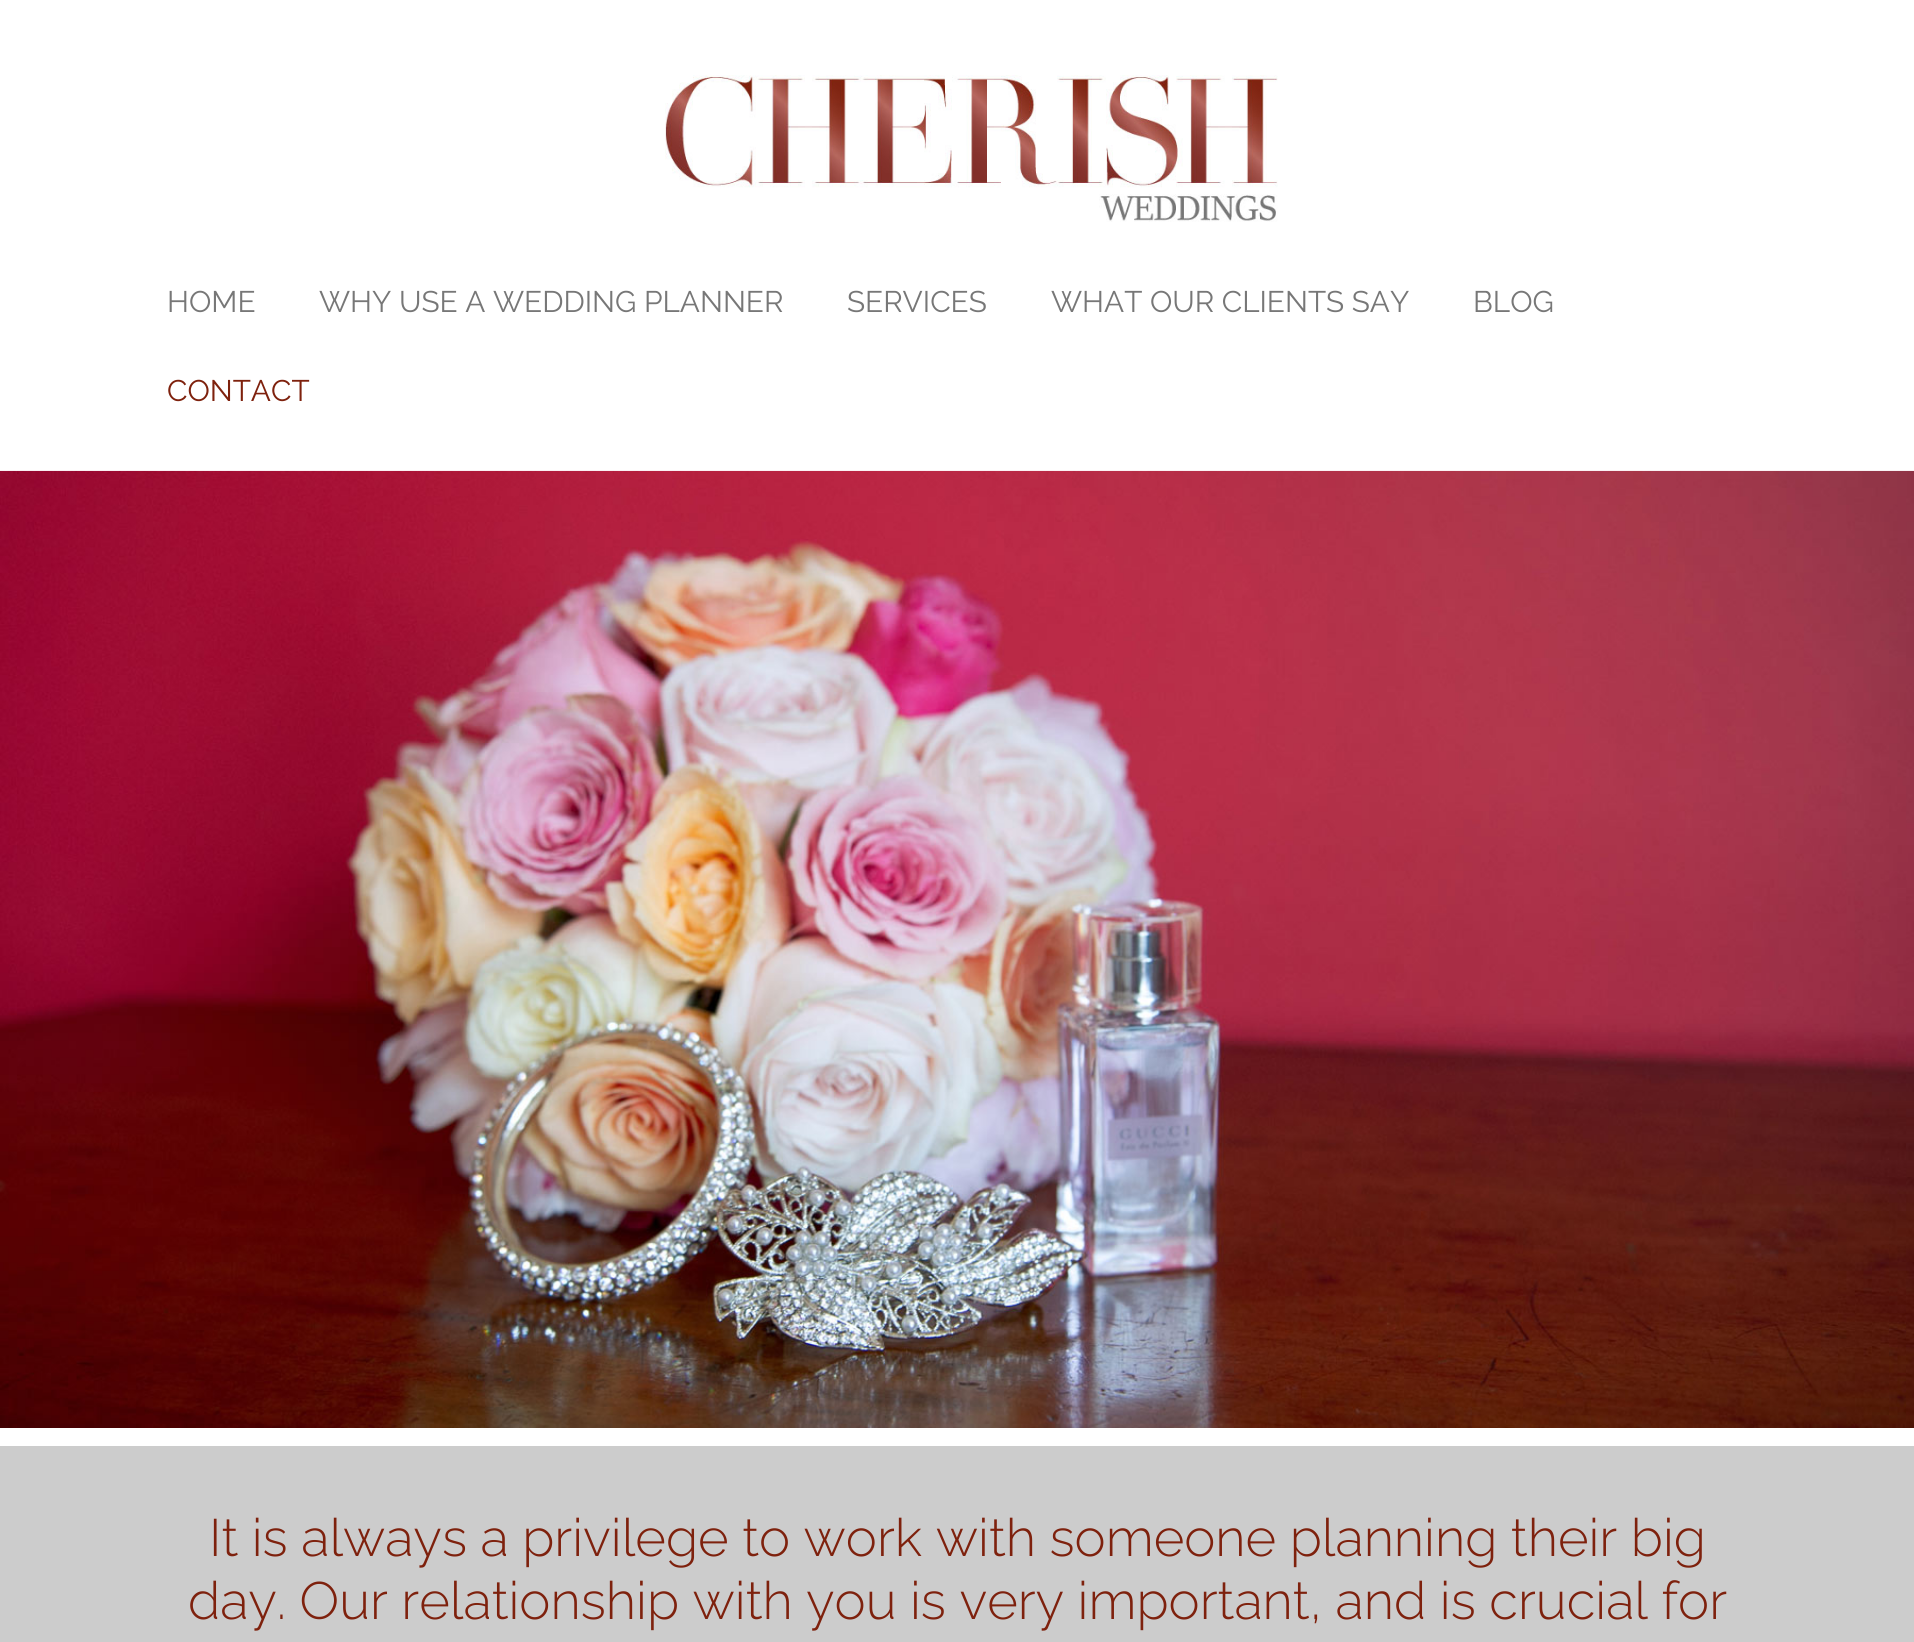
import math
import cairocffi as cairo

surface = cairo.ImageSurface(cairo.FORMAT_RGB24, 1914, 1642)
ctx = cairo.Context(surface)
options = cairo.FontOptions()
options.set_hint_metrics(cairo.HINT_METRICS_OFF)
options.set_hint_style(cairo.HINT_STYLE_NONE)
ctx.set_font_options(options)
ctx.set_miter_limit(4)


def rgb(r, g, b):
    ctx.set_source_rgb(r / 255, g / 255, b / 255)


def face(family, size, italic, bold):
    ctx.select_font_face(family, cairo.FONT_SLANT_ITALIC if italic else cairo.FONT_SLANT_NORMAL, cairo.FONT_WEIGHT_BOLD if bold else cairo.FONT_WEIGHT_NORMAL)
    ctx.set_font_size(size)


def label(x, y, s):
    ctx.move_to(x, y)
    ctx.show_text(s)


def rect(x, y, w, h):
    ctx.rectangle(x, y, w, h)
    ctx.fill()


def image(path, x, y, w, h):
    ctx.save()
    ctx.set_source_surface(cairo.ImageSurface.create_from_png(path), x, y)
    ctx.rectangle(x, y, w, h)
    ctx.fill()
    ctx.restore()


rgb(255, 255, 255)
ctx.paint()
image('image0.png', 665, 75, 613, 147)
face('Raleway', 29.75, 0, 0)
rgb(119, 119, 119)
label(167, 312, 'HOME')
label(319, 312, 'WHY USE A WEDDING PLANNER')
label(847, 312, 'SERVICES')
label(1051, 312, 'WHAT OUR CLIENTS SAY')
label(1473, 312, 'BLOG')
rgb(126, 33, 13)
label(167, 401, 'CONTACT')
image('image1.png', 0, 470, 1914, 958)
rgb(204, 204, 204)
rect(0, 1446, 1914, 196)
face('Raleway Light', 52.5, 0, 0)
rgb(126, 33, 13)
label(209, 1556, 'It is always a privilege to work with someone planning their big')
label(188, 1619, 'day. Our relationship with you is very important, and is crucial for')
surface.write_to_png('render.png')
